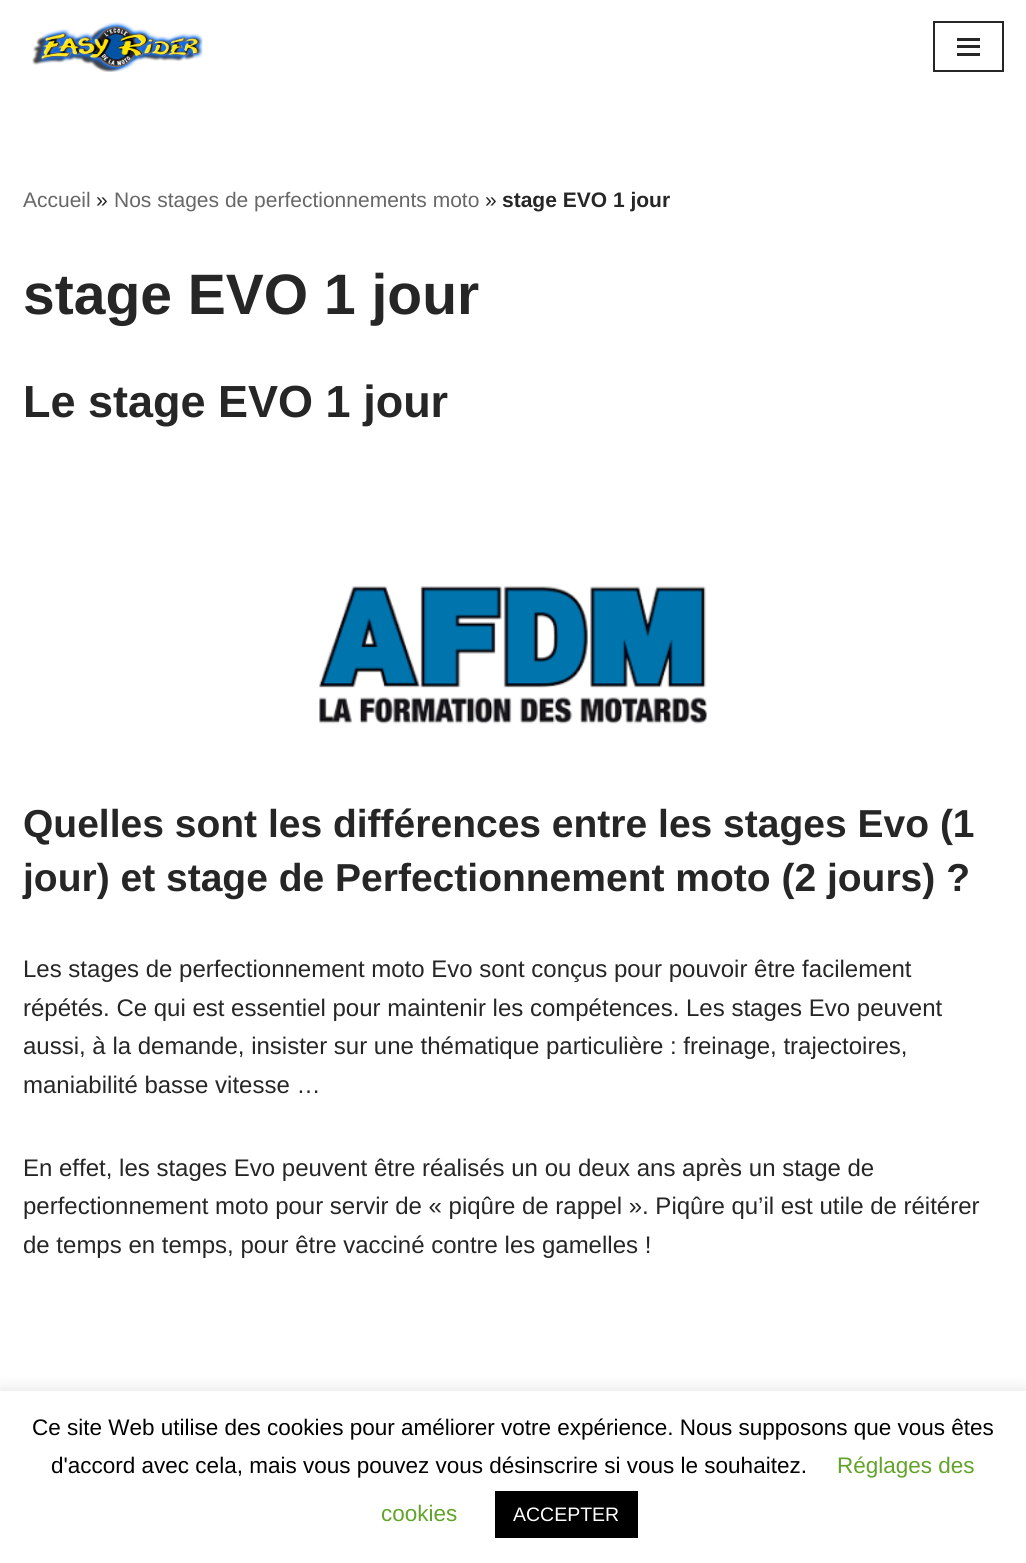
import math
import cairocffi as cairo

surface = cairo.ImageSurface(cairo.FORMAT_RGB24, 1026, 1563)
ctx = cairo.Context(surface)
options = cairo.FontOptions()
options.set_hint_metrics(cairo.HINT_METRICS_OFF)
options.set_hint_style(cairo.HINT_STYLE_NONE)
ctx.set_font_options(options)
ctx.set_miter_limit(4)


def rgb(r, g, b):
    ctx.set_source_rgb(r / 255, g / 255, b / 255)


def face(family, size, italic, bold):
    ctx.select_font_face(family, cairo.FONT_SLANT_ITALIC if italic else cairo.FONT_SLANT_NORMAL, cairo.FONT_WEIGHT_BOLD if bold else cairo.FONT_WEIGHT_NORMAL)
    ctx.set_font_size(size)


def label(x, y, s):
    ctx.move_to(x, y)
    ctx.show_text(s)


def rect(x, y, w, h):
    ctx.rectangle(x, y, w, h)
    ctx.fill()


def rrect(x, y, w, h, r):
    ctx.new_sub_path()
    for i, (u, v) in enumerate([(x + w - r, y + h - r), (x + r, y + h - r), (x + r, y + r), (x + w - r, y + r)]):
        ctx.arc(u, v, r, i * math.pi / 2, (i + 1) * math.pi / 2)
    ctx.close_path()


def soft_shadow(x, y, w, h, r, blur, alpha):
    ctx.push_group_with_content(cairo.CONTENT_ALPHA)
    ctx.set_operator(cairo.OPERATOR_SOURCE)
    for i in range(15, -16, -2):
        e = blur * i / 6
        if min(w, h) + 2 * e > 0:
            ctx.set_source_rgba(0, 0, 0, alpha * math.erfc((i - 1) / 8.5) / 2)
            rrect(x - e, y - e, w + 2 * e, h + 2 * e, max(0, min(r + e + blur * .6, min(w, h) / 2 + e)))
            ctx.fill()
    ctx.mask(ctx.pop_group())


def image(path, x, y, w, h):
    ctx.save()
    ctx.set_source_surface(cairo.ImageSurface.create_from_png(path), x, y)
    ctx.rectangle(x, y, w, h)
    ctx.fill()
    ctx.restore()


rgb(255, 255, 255)
ctx.paint()
image('image0.png', 32, 22, 171, 50)
ctx.rectangle(934, 22, 69, 49)
rgb(39, 38, 38)
ctx.stroke()
rect(957, 38, 23, 3)
rect(957, 45, 23, 3)
rect(957, 53, 23, 3)
face('Liberation Sans', 21, 0, 0)
rgb(103, 103, 103)
label(23, 207, 'Accueil')
rgb(39, 38, 38)
label(96, 207, '»')
rgb(103, 103, 103)
label(114, 207, 'Nos stages de perfectionnements moto')
rgb(39, 38, 38)
label(485, 207, '»')
face('Liberation Sans', 21, 0, 1)
label(502, 207, 'stage EVO 1 jour')
face('Liberation Sans', 57, 0, 1)
label(23, 314, 'stage EVO 1 jour')
face('Liberation Sans', 45, 0, 1)
label(23, 417, 'Le stage EVO 1 jour')
image('image1.png', 319, 586, 388, 138)
face('Liberation Sans', 39, 0, 1)
label(23, 837, 'Quelles sont les différences entre les stages Evo (1')
label(23, 891, 'jour) et stage de Perfectionnement moto (2 jours) ?')
face('Liberation Sans', 24, 0, 0)
label(23, 977, 'Les stages de perfectionnement moto Evo sont conçus pour pouvoir être facilement')
label(23, 1016, 'répétés. Ce qui est essentiel pour maintenir les compétences. Les stages Evo peuvent')
label(23, 1054, 'aussi, à la demande, insister sur une thématique particulière : freinage, trajectoires,')
label(23, 1093, 'maniabilité basse vitesse …')
label(23, 1176, 'En effet, les stages Evo peuvent être réalisés un ou deux ans après un stage de')
label(23, 1214, 'perfectionnement moto pour servir de « piqûre de rappel ». Piqûre qu’il est utile de réitérer')
label(23, 1253, 'de temps en temps, pour être vacciné contre les gamelles !')
rgb(172, 171, 171)
soft_shadow(0, 1389, 1026, 173, 0, 7.5, 0.3)
rgb(255, 255, 255)
rect(0, 1391, 1026, 172)
face('Liberation Sans', 22.5, 0, 0)
rgb(0, 0, 0)
label(32, 1435, 'Ce site Web utilise des cookies pour améliorer votre expérience. Nous supposons que vous êtes')
label(51, 1473, 'd\'accord avec cela, mais vous pouvez vous désinscrire si vous le souhaitez.')
rgb(98, 163, 41)
label(837, 1473, 'Réglages des')
label(381, 1521, 'cookies')
rgb(0, 0, 0)
rect(495, 1491, 143, 47)
face('Liberation Sans', 19.5, 0, 0)
rgb(255, 255, 255)
label(513, 1521, 'ACCEPTER')
surface.write_to_png('render.png')
